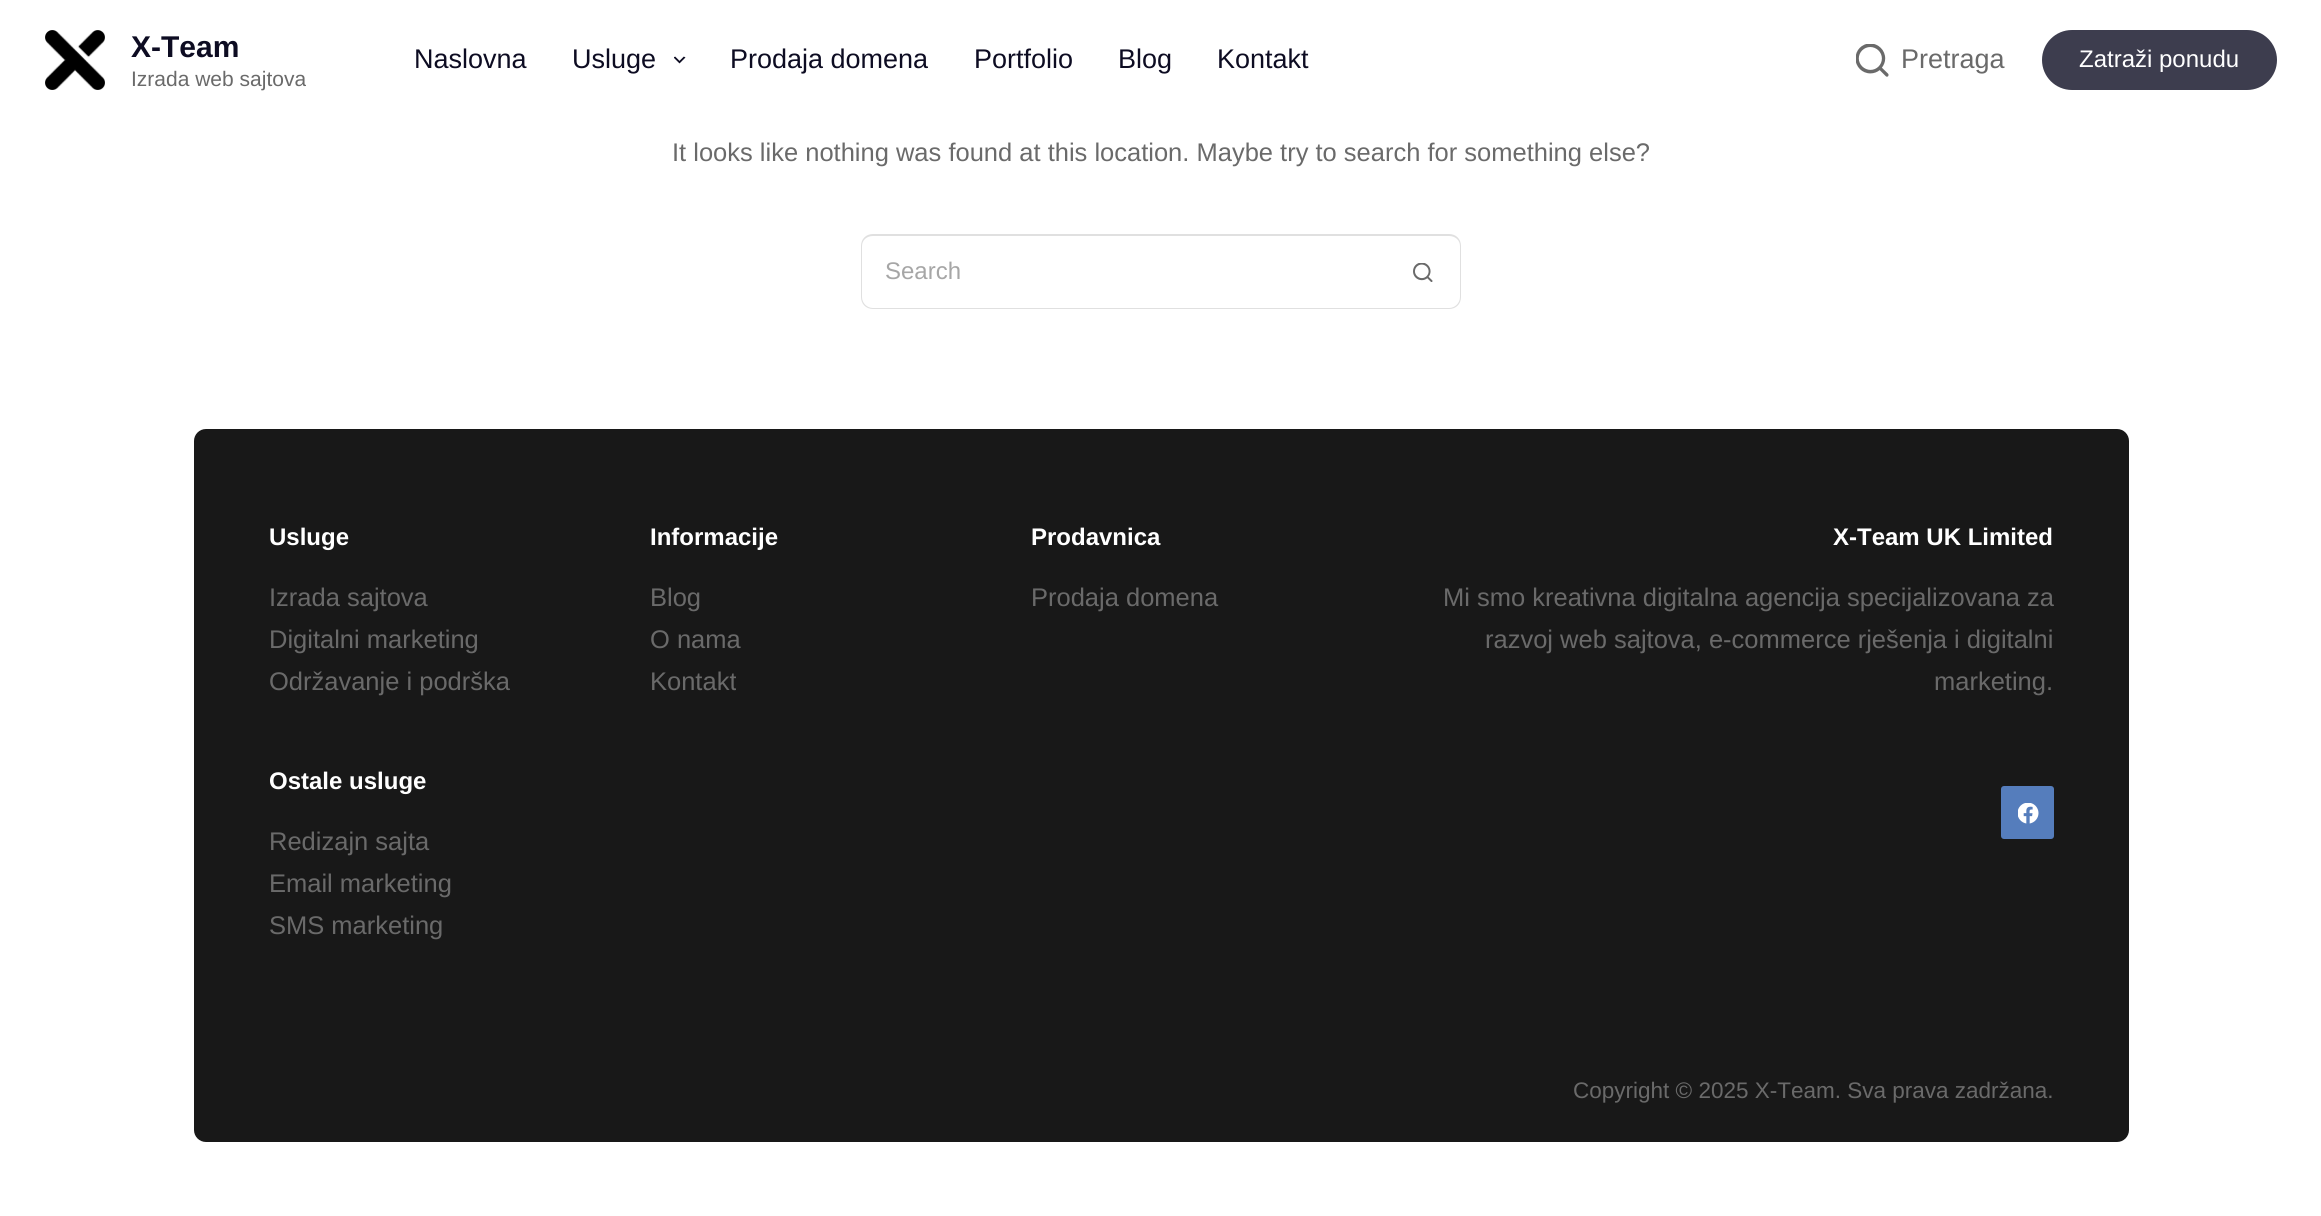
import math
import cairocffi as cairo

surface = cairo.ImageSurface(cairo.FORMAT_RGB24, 2321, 1216)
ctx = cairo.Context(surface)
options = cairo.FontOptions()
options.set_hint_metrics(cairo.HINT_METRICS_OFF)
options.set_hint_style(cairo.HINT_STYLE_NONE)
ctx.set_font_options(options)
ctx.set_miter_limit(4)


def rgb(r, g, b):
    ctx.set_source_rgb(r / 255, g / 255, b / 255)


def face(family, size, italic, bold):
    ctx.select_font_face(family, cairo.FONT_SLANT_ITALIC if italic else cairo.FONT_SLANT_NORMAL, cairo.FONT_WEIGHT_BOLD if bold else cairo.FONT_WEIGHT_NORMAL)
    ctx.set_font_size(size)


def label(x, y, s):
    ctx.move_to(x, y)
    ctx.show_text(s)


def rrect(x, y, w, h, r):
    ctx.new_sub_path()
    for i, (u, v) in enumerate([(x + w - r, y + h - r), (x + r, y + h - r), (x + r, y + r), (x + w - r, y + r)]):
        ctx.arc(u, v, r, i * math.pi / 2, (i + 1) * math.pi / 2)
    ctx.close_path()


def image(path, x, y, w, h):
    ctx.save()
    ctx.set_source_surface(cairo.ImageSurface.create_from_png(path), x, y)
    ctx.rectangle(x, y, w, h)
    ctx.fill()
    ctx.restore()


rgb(255, 255, 255)
ctx.paint()
image('image0.png', 45, 30, 60, 60)
face('Liberation Sans', 30, 0, 1)
rgb(13, 12, 34)
label(131, 57, 'X-Team')
face('Liberation Sans', 21, 0, 0)
rgb(106, 106, 106)
label(131, 86, 'Izrada web sajtova')
face('Liberation Sans', 27, 0, 0)
rgb(13, 12, 34)
label(414, 68, 'Naslovna')
label(572, 68, 'Usluge')
image('image1.png', 674, 56, 12, 8)
label(730, 68, 'Prodaja domena')
label(974, 68, 'Portfolio')
label(1118, 68, 'Blog')
label(1217, 68, 'Kontakt')
image('image2.png', 1856, 44, 33, 33)
rgb(106, 106, 106)
label(1901, 68, 'Pretraga')
rgb(61, 61, 78)
rrect(2042, 30, 235, 60, 30)
ctx.fill()
face('Liberation Sans', 24, 0, 0)
rgb(255, 255, 255)
label(2079, 67, 'Zatraži ponudu')
face('Liberation Sans', 25.5, 0, 0)
rgb(106, 106, 106)
label(672, 161, 'It looks like nothing was found at this location. Maybe try to search for something else?')
rgb(224, 224, 224)
ctx.set_fill_rule(cairo.FILL_RULE_EVEN_ODD)
ctx.new_path()
ctx.move_to(873, 234)
ctx.line_to(1386, 234)
ctx.line_to(1386, 309)
ctx.line_to(873, 309)
ctx.curve_to(866, 309, 861, 304, 861, 297)
ctx.line_to(861, 246)
ctx.curve_to(861, 239, 866, 234, 873, 234)
ctx.close_path()
ctx.move_to(873, 236)
ctx.line_to(1386, 236)
ctx.line_to(1386, 308)
ctx.line_to(873, 308)
ctx.curve_to(867, 308, 862, 303, 862, 297)
ctx.line_to(862, 246)
ctx.curve_to(862, 240, 867, 236, 873, 236)
ctx.close_path()
ctx.fill()
face('Liberation Sans', 24, 0, 0)
rgb(166, 166, 166)
label(885, 279, 'Search')
rgb(224, 224, 224)
ctx.new_path()
ctx.move_to(1386, 234)
ctx.line_to(1449, 234)
ctx.curve_to(1456, 234, 1461, 239, 1461, 246)
ctx.line_to(1461, 297)
ctx.curve_to(1461, 304, 1456, 309, 1449, 309)
ctx.line_to(1386, 309)
ctx.close_path()
ctx.move_to(1386, 236)
ctx.line_to(1449, 236)
ctx.curve_to(1455, 236, 1460, 240, 1460, 246)
ctx.line_to(1460, 297)
ctx.curve_to(1460, 303, 1455, 308, 1449, 308)
ctx.line_to(1386, 308)
ctx.close_path()
ctx.fill()
image('image3.png', 1413, 263, 20, 19)
rgb(24, 24, 24)
rrect(194, 429, 1935, 713, 12)
ctx.fill()
face('Liberation Sans', 24, 0, 1)
rgb(255, 255, 255)
label(269, 545, 'Usluge')
face('Liberation Sans', 25.5, 0, 0)
rgb(106, 106, 106)
label(269, 606, 'Izrada sajtova')
label(269, 648, 'Digitalni marketing')
label(269, 690, 'Održavanje i podrška')
face('Liberation Sans', 24, 0, 1)
rgb(255, 255, 255)
label(269, 789, 'Ostale usluge')
face('Liberation Sans', 25.5, 0, 0)
rgb(106, 106, 106)
label(269, 850, 'Redizajn sajta')
label(269, 892, 'Email marketing')
label(269, 934, 'SMS marketing')
face('Liberation Sans', 24, 0, 1)
rgb(255, 255, 255)
label(650, 545, 'Informacije')
face('Liberation Sans', 25.5, 0, 0)
rgb(106, 106, 106)
label(650, 606, 'Blog')
label(650, 648, 'O nama')
label(650, 690, 'Kontakt')
face('Liberation Sans', 24, 0, 1)
rgb(255, 255, 255)
label(1031, 545, 'Prodavnica')
face('Liberation Sans', 25.5, 0, 0)
rgb(106, 106, 106)
label(1031, 606, 'Prodaja domena')
face('Liberation Sans', 24, 0, 1)
rgb(255, 255, 255)
label(1833, 545, 'X-Team UK Limited')
face('Liberation Sans', 25.5, 0, 0)
rgb(106, 106, 106)
label(1443, 606, 'Mi smo kreativna digitalna agencija specijalizovana za')
label(1485, 648, 'razvoj web sajtova, e-commerce rješenja i digitalni')
label(1934, 690, 'marketing.')
rgb(85, 125, 188)
rrect(2001, 786, 53, 53, 3)
ctx.fill()
image('image4.png', 2018, 803, 21, 21)
face('Liberation Sans', 22.5, 0, 0)
rgb(106, 106, 106)
label(1573, 1098, 'Copyright © 2025 X-Team. Sva prava zadržana.')
surface.write_to_png('render.png')
